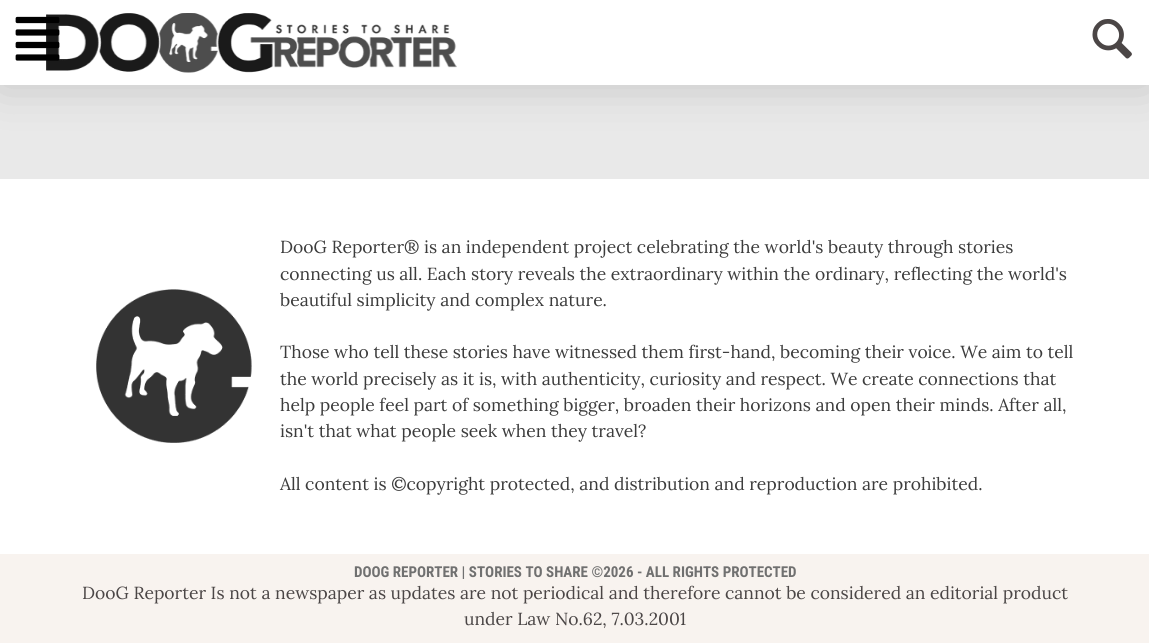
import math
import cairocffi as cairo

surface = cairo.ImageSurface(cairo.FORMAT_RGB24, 1149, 643)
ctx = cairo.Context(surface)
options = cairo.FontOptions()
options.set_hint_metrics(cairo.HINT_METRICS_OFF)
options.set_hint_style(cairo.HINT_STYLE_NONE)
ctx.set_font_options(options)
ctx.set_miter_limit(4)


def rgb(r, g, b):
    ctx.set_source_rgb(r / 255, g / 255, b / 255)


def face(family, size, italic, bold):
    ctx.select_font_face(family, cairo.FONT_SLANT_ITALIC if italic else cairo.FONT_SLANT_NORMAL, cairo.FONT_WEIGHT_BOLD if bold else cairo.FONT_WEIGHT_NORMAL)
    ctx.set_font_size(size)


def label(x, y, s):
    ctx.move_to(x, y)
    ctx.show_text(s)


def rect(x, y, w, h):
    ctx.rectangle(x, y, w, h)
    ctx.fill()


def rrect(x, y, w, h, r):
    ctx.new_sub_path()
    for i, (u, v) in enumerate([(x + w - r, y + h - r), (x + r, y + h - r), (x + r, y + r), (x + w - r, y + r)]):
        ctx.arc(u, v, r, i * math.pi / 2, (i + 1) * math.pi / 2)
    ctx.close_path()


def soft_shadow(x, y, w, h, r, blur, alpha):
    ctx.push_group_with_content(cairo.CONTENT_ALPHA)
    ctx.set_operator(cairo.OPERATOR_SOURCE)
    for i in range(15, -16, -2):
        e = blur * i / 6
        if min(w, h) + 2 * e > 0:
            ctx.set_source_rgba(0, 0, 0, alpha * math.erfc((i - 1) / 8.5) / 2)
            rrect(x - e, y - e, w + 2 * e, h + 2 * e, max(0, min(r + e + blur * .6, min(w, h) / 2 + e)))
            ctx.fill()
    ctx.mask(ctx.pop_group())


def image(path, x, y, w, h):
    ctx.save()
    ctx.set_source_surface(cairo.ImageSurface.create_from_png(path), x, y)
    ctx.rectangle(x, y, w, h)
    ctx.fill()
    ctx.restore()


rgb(248, 243, 239)
ctx.paint()
rgb(233, 233, 233)
rect(0, 85, 1149, 94)
rgb(0, 0, 0)
soft_shadow(0, 0, 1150, 85, 0, 25, 0.16)
rgb(255, 255, 255)
rect(0, 0, 1149, 85)
image('image1.png', 46, 13, 411, 60)
image('image0.png', 15, 16, 45, 45)
image('image2.png', 1092, 19, 40, 40)
rect(0, 179, 1149, 375)
image('image3.png', 96, 289, 156, 154)
face('Lora', 17.5, 0, 0)
rgb(60, 60, 60)
label(280, 253, 'DooG Reporter® is an independent project celebrating the world\'s beauty through stories')
label(280, 280, 'connecting us all. Each story reveals the extraordinary within the ordinary, reflecting the world\'s')
label(280, 306, 'beautiful simplicity and complex nature.')
label(280, 358, 'Those who tell these stories have witnessed them first-hand, becoming their voice. We aim to tell')
label(280, 385, 'the world precisely as it is, with authenticity, curiosity and respect. We create connections that')
label(280, 411, 'help people feel part of something bigger, broaden their horizons and open their minds. After all,')
label(280, 437, 'isn\'t that what people seek when they travel?')
label(280, 490, 'All content is ©copyright protected, and distribution and reproduction are prohibited.')
face('Roboto Condensed', 15, 0, 1)
rgb(112, 112, 112)
label(354, 577, 'DOOG REPORTER | STORIES TO SHARE ©2026 - ALL RIGHTS PROTECTED')
face('Lora', 17.5, 0, 0)
rgb(75, 70, 70)
label(82, 599, 'DooG Reporter Is not a newspaper as updates are not periodical and therefore cannot be considered an editorial product')
label(464, 625, 'under Law No.62, 7.03.2001')
surface.write_to_png('render.png')
